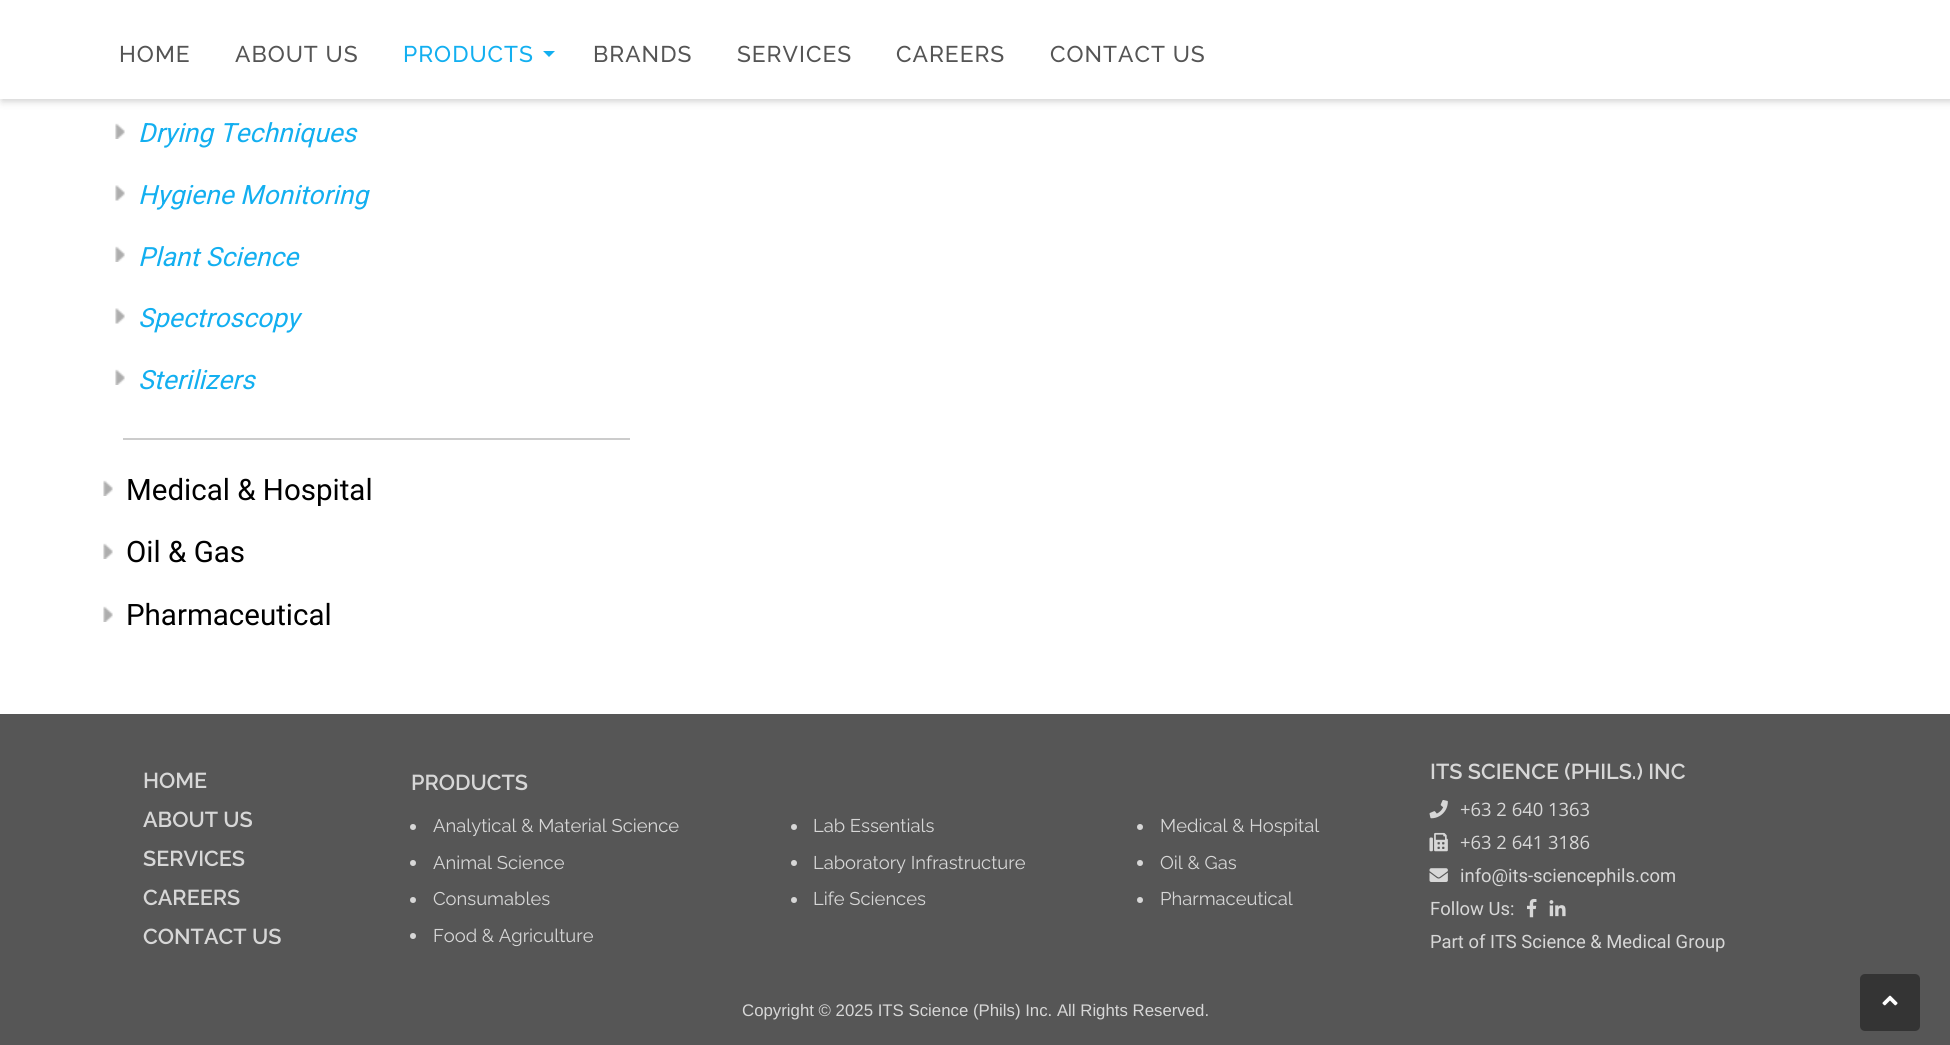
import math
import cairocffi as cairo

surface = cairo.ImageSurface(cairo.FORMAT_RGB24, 1950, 1045)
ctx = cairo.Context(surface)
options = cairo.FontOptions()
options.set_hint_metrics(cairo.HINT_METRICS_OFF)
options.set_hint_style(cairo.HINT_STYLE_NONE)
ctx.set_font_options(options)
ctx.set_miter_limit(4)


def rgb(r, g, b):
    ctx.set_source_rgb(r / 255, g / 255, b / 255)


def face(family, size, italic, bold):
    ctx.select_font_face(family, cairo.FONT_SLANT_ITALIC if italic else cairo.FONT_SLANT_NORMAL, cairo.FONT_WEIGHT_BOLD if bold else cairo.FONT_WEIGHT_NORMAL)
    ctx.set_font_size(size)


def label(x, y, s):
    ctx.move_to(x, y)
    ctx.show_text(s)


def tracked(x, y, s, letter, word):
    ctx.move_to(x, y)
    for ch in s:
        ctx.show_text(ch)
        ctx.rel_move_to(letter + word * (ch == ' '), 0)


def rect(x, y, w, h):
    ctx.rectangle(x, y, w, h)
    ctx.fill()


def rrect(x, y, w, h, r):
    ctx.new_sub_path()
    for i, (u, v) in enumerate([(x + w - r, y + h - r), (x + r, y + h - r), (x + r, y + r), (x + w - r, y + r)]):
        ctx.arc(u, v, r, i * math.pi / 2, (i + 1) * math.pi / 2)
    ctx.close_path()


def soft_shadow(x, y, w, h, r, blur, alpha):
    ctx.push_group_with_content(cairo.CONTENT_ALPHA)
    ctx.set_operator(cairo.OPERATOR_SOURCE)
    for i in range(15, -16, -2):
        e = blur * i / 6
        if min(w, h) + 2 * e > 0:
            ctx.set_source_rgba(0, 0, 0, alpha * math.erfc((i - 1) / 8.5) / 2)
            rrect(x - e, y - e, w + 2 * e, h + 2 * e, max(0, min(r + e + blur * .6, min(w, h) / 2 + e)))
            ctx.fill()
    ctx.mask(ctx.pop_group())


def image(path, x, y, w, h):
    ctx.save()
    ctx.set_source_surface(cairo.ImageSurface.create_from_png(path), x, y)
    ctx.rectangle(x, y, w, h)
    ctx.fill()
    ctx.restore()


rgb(255, 255, 255)
ctx.paint()
rgb(0, 0, 0)
soft_shadow(2, 2, 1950, 99, 0, 4, 0.2)
rgb(255, 255, 255)
rect(0, 0, 1950, 99)
face('Raleway Medium', 22.75, 0, 0)
rgb(85, 85, 85)
tracked(119, 62, 'HOME', 1, 0)
tracked(235, 62, 'ABOUT US', 1, 0)
rgb(19, 175, 240)
tracked(403, 62, 'PRODUCTS', 1, 0)
ctx.new_path()
ctx.move_to(543, 51)
ctx.line_to(555, 51)
ctx.line_to(549, 57)
ctx.close_path()
ctx.fill()
rgb(85, 85, 85)
tracked(593, 62, 'BRANDS', 1, 0)
tracked(737, 62, 'SERVICES', 1, 0)
tracked(896, 62, 'CAREERS', 1, 0)
tracked(1050, 62, 'CONTACT US', 1, 0)
rgb(204, 204, 204)
rect(123, 438, 507, 2)
image('image0.png', 115, 123, 10, 16)
face('Roboto', 26.5, 1, 0)
rgb(19, 175, 240)
label(138, 142, 'Drying Techniques')
image('image1.png', 115, 185, 10, 16)
label(138, 204, 'Hygiene Monitoring')
image('image0.png', 115, 246, 10, 16)
label(138, 266, 'Plant Science')
image('image1.png', 115, 308, 10, 16)
label(138, 327, 'Spectroscopy')
image('image0.png', 115, 369, 10, 16)
label(138, 389, 'Sterilizers')
image('image0.png', 103, 480, 10, 16)
face('Roboto', 29.5, 0, 0)
rgb(0, 0, 0)
label(126, 500, 'Medical & Hospital')
image('image0.png', 103, 543, 10, 16)
label(126, 562, 'Oil & Gas')
image('image0.png', 103, 606, 10, 16)
label(126, 625, 'Pharmaceutical')
rgb(86, 86, 86)
rect(0, 714, 1950, 331)
face('Raleway SemiBold', 21.6, 0, 0)
rgb(215, 215, 215)
label(143, 788, 'HOME')
label(143, 827, 'ABOUT US')
label(143, 866, 'SERVICES')
label(143, 905, 'CAREERS')
label(143, 944, 'CONTACT US')
label(411, 790, 'PRODUCTS')
ctx.new_path()
ctx.arc(413, 827, 3, 0, 2 * math.pi)
ctx.fill()
face('Raleway', 18.4, 0, 0)
label(433, 832, 'Analytical & Material Science')
ctx.new_path()
ctx.arc(413, 863, 3, 0, 2 * math.pi)
ctx.fill()
label(433, 869, 'Animal Science')
ctx.new_path()
ctx.arc(413, 900, 3, 0, 2 * math.pi)
ctx.fill()
label(433, 905, 'Consumables')
ctx.new_path()
ctx.arc(413, 936, 3, 0, 2 * math.pi)
ctx.fill()
label(433, 942, 'Food & Agriculture')
ctx.new_path()
ctx.arc(794, 827, 3, 0, 2 * math.pi)
ctx.fill()
label(813, 832, 'Lab Essentials')
ctx.new_path()
ctx.arc(794, 863, 3, 0, 2 * math.pi)
ctx.fill()
label(813, 869, 'Laboratory Infrastructure')
ctx.new_path()
ctx.arc(794, 900, 3, 0, 2 * math.pi)
ctx.fill()
label(813, 905, 'Life Sciences')
ctx.new_path()
ctx.arc(1140, 827, 3, 0, 2 * math.pi)
ctx.fill()
label(1160, 832, 'Medical & Hospital')
ctx.new_path()
ctx.arc(1140, 863, 3, 0, 2 * math.pi)
ctx.fill()
label(1160, 869, 'Oil & Gas')
ctx.new_path()
ctx.arc(1140, 900, 3, 0, 2 * math.pi)
ctx.fill()
label(1160, 905, 'Pharmaceutical')
face('Raleway SemiBold', 21.6, 0, 0)
label(1430, 779, 'ITS SCIENCE (PHILS.) INC')
image('image2.png', 1429, 800, 19, 19)
face('Open Sans', 18.4, 0, 0)
label(1460, 816, '+63 2 640 1363')
image('image3.png', 1429, 832, 19, 20)
label(1460, 849, '+63 2 641 3186')
image('image4.png', 1429, 868, 19, 14)
face('Roboto', 18.4, 0, 0)
label(1460, 882, 'info@its-sciencephils.com')
label(1430, 915, 'Follow Us:')
image('image5.png', 1527, 898, 10, 20)
image('image6.png', 1549, 900, 17, 17)
label(1430, 948, 'Part of ITS Science & Medical Group')
face('Liberation Sans', 16.8, 0, 0)
label(742, 1016, 'Copyright © 2025 ITS Science (Phils) Inc. All Rights Reserved.')
rgb(52, 52, 52)
rrect(1860, 974, 60, 57, 5)
ctx.fill()
image('image7.png', 1882, 995, 16, 11)
surface.write_to_png('render.png')
